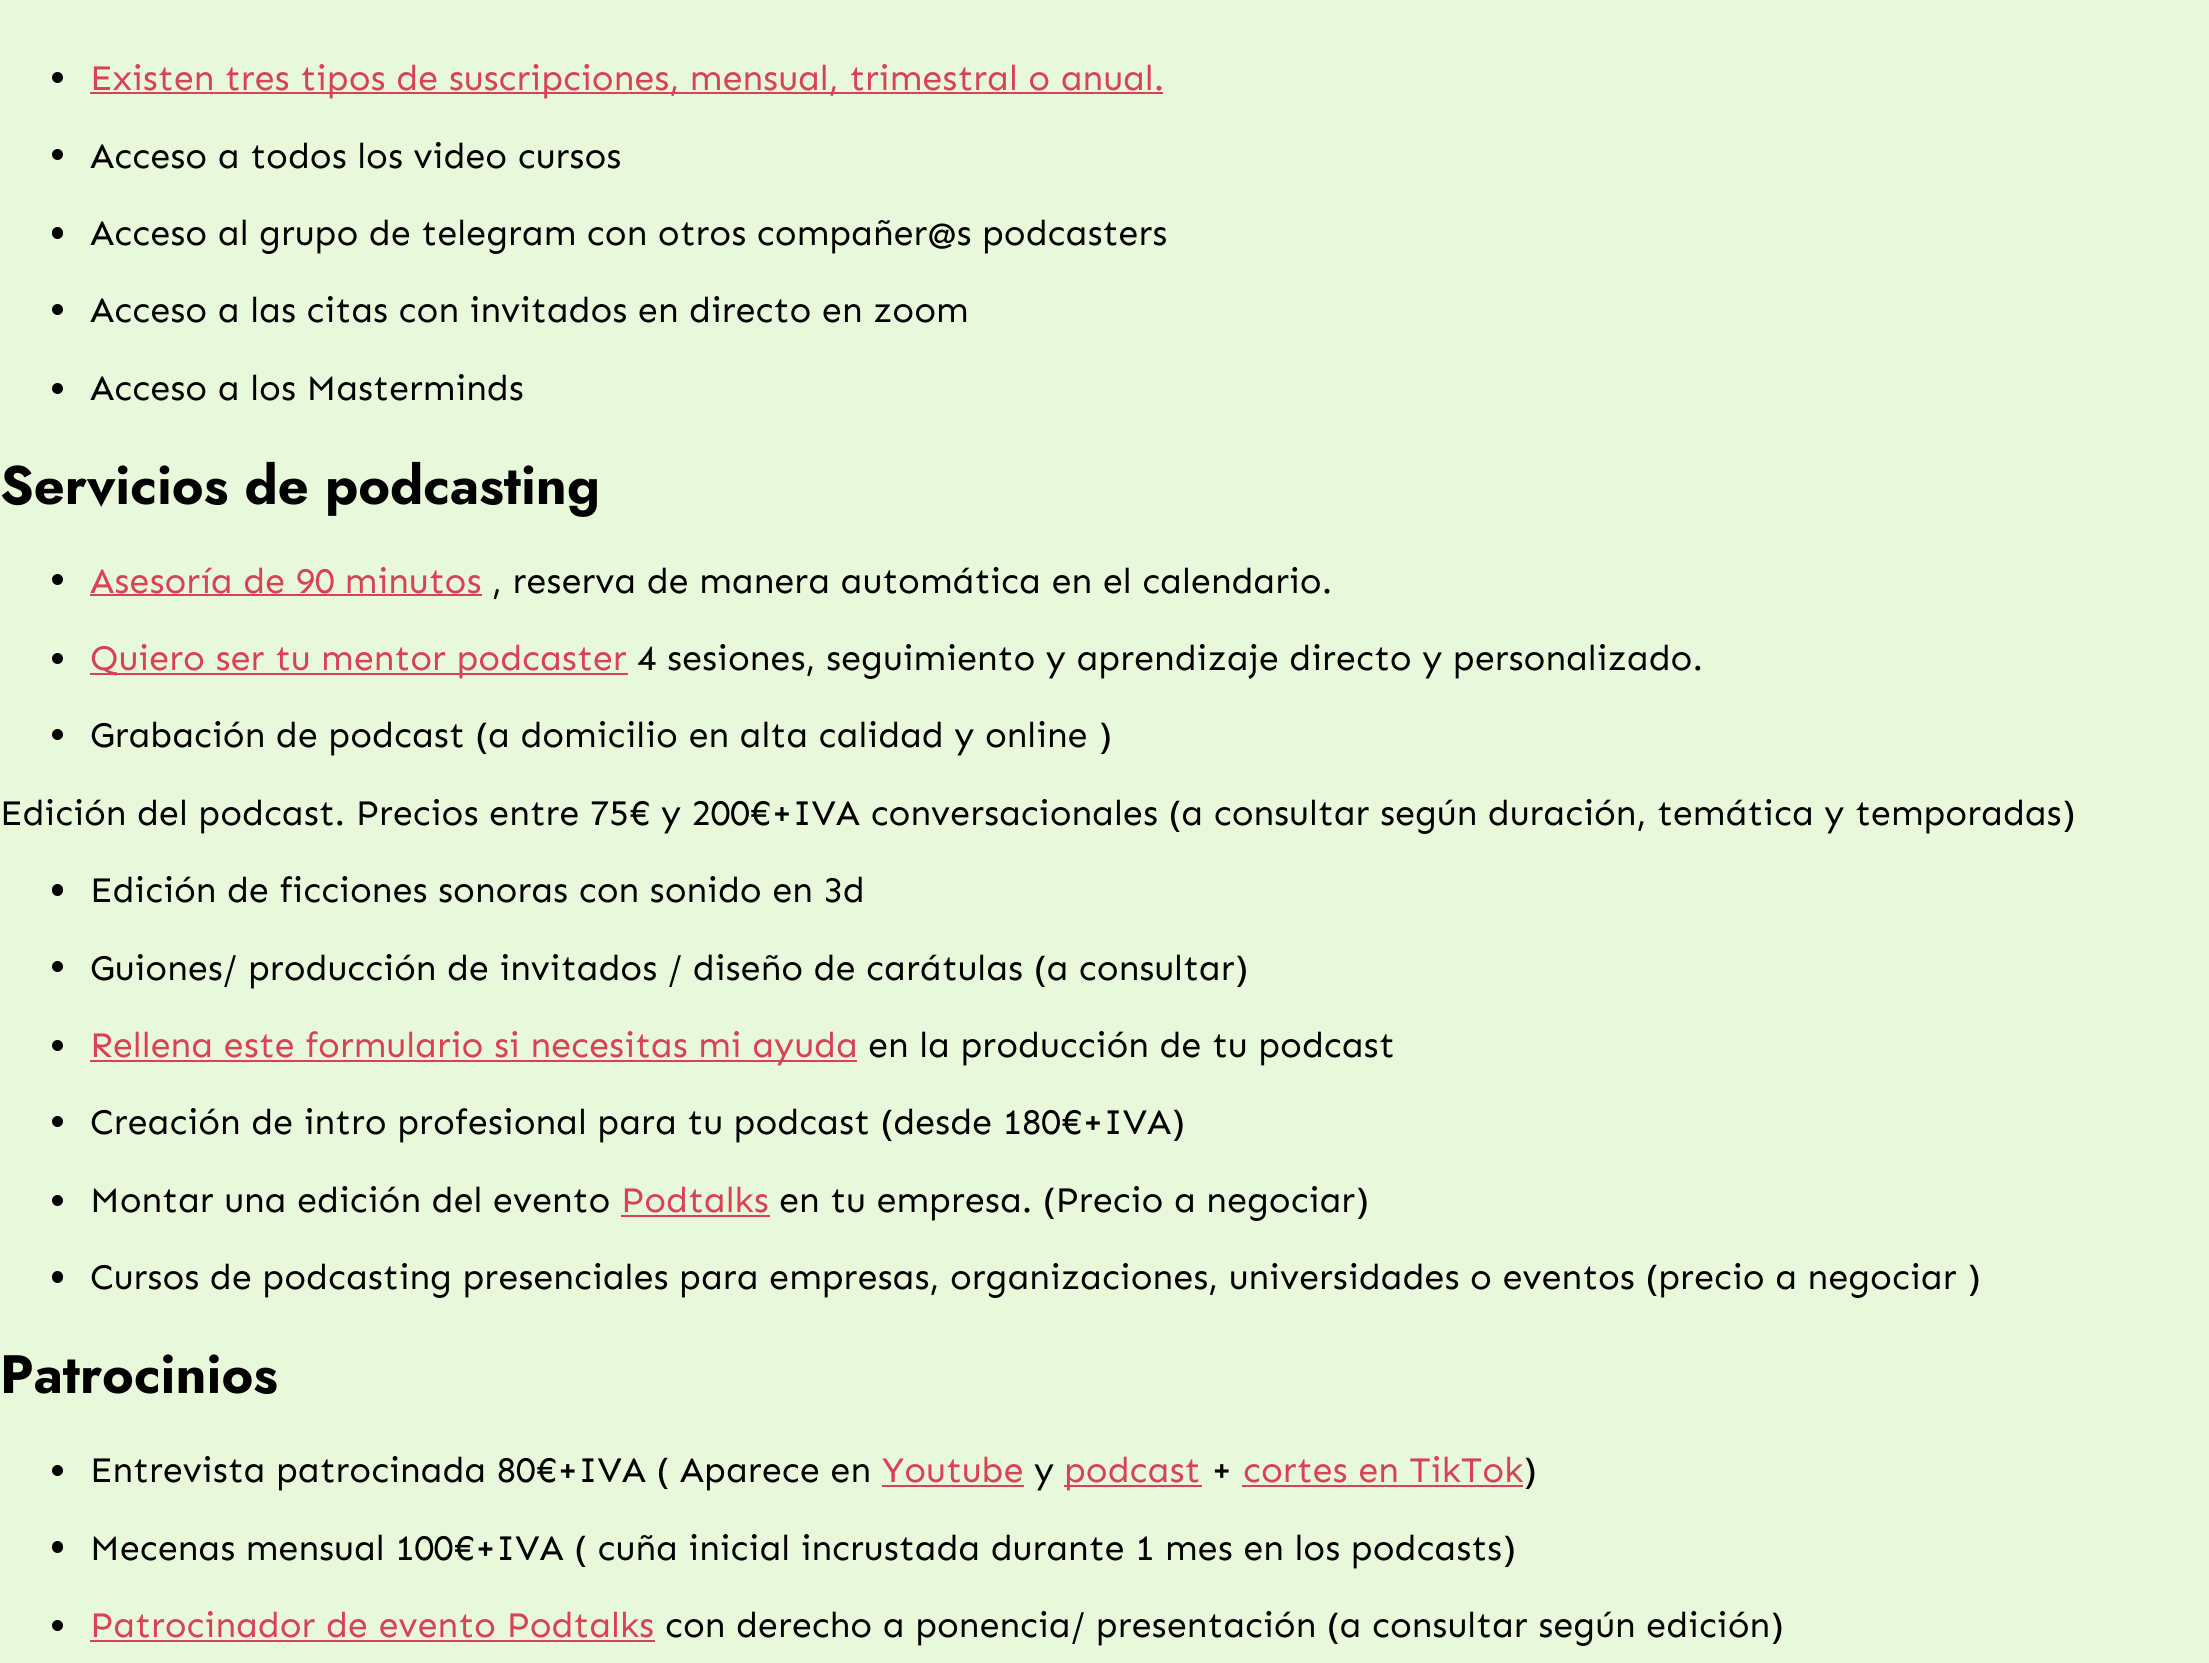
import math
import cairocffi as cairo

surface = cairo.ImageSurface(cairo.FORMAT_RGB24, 2209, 1663)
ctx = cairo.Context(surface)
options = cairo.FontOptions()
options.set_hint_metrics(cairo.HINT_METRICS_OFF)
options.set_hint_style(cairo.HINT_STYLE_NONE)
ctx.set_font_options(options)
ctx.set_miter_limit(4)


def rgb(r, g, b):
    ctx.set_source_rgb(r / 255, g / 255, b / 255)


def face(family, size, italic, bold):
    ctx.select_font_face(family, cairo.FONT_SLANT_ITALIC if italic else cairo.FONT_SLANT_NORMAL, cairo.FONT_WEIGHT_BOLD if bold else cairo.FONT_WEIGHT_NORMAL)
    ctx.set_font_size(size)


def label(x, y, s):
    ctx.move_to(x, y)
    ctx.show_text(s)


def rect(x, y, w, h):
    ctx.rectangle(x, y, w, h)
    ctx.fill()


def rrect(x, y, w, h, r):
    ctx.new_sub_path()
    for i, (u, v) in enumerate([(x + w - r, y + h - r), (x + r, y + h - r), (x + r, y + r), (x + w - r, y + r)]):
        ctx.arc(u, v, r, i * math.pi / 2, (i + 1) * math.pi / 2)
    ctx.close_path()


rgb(232, 248, 218)
ctx.paint()
rgb(0, 0, 0)
ctx.arc(57.5, 77.5, 5.5, 0, 2 * math.pi)
ctx.fill()
rgb(216, 65, 86)
rect(90, 92, 1073, 2)
face('Sen', 36, 0, 0)
label(90, 90, 'Existen tres tipos de suscripciones, mensual, trimestral o anual.')
rgb(0, 0, 0)
ctx.new_path()
ctx.arc(57.5, 154.5, 5.5, 0, 2 * math.pi)
ctx.fill()
label(90, 168, 'Acceso a todos los video cursos')
rrect(52, 227, 11, 12, 5.5)
ctx.fill()
label(90, 245, 'Acceso al grupo de telegram con otros compañer@s podcasters')
ctx.new_path()
ctx.arc(57.5, 309.5, 5.5, 0, 2 * math.pi)
ctx.fill()
label(90, 322, 'Acceso a las citas con invitados en directo en zoom')
ctx.new_path()
ctx.arc(57.5, 388.5, 5.5, 0, 2 * math.pi)
ctx.fill()
label(90, 400, 'Acceso a los Masterminds')
face('Jost', 54, 0, 1)
label(0, 504, 'Servicios de podcasting')
ctx.new_path()
ctx.arc(57.5, 579.5, 5.5, 0, 2 * math.pi)
ctx.fill()
face('Sen', 36, 0, 0)
rgb(216, 65, 86)
label(90, 593, 'Asesoría de 90 minutos')
rect(90, 594, 392, 2)
rgb(0, 0, 0)
label(492, 593, ', reserva de manera automática en el calendario.')
ctx.new_path()
ctx.arc(57.5, 658.5, 5.5, 0, 2 * math.pi)
ctx.fill()
rgb(216, 65, 86)
rect(90, 673, 538, 2)
label(90, 670, 'Quiero ser tu mentor podcaster')
rgb(0, 0, 0)
label(637, 670, '4 sesiones, seguimiento y aprendizaje directo y personalizado.')
ctx.new_path()
ctx.arc(57.5, 734.5, 5.5, 0, 2 * math.pi)
ctx.fill()
label(90, 747, 'Grabación de podcast (a domicilio en alta calidad y online )')
label(0, 825, 'Edición del podcast. Precios entre 75€ y 200€+IVA conversacionales (a consultar según duración, temática y temporadas)')
rrect(52, 884, 11, 12, 5.5)
ctx.fill()
label(90, 902, 'Edición de ficciones sonoras con sonido en 3d')
ctx.new_path()
ctx.arc(57.5, 966.5, 5.5, 0, 2 * math.pi)
ctx.fill()
label(90, 980, 'Guiones/ producción de invitados / diseño de carátulas (a consultar)')
ctx.new_path()
ctx.arc(57.5, 1045.5, 5.5, 0, 2 * math.pi)
ctx.fill()
rgb(216, 65, 86)
rect(90, 1060, 767, 2)
label(90, 1057, 'Rellena este formulario si necesitas mi ayuda')
rgb(0, 0, 0)
label(868, 1057, 'en la producción de tu podcast')
ctx.new_path()
ctx.arc(57.5, 1121.5, 5.5, 0, 2 * math.pi)
ctx.fill()
label(90, 1134, 'Creación de intro profesional para tu podcast (desde 180€+IVA)')
ctx.new_path()
ctx.arc(57.5, 1200.5, 5.5, 0, 2 * math.pi)
ctx.fill()
label(90, 1212, 'Montar una edición del evento')
rgb(216, 65, 86)
label(621, 1212, 'Podtalks')
rect(621, 1215, 149, 2)
rgb(0, 0, 0)
label(779, 1212, 'en tu empresa. (Precio a negociar)')
rrect(52, 1271, 11, 12, 5.5)
ctx.fill()
label(90, 1289, 'Cursos de podcasting presenciales para empresas, organizaciones, universidades o eventos (precio a negociar )')
face('Jost', 54, 0, 1)
label(0, 1393, 'Patrocinios')
ctx.new_path()
ctx.arc(57.5, 1470.5, 5.5, 0, 2 * math.pi)
ctx.fill()
face('Sen', 36, 0, 0)
label(90, 1482, 'Entrevista patrocinada 80€+IVA ( Aparece en')
rgb(216, 65, 86)
label(882, 1482, 'Youtube')
rect(882, 1485, 142, 2)
rgb(0, 0, 0)
label(1034, 1482, 'y')
rgb(216, 65, 86)
rect(1064, 1485, 138, 2)
label(1064, 1482, 'podcast')
rgb(0, 0, 0)
label(1211, 1482, '+')
rgb(216, 65, 86)
label(1243, 1482, 'cortes en TikTok')
rect(1242, 1485, 281, 2)
rgb(0, 0, 0)
label(1523, 1482, ')')
rrect(52, 1541, 11, 12, 5.5)
ctx.fill()
label(90, 1560, 'Mecenas mensual 100€+IVA ( cuña inicial incrustada durante 1 mes en los podcasts)')
ctx.new_path()
ctx.arc(57.5, 1625.5, 5.5, 0, 2 * math.pi)
ctx.fill()
rgb(216, 65, 86)
label(90, 1637, 'Patrocinador de evento Podtalks')
rect(90, 1640, 565, 2)
rgb(0, 0, 0)
label(665, 1637, 'con derecho a ponencia/ presentación (a consultar según edición)')
surface.write_to_png('render.png')
